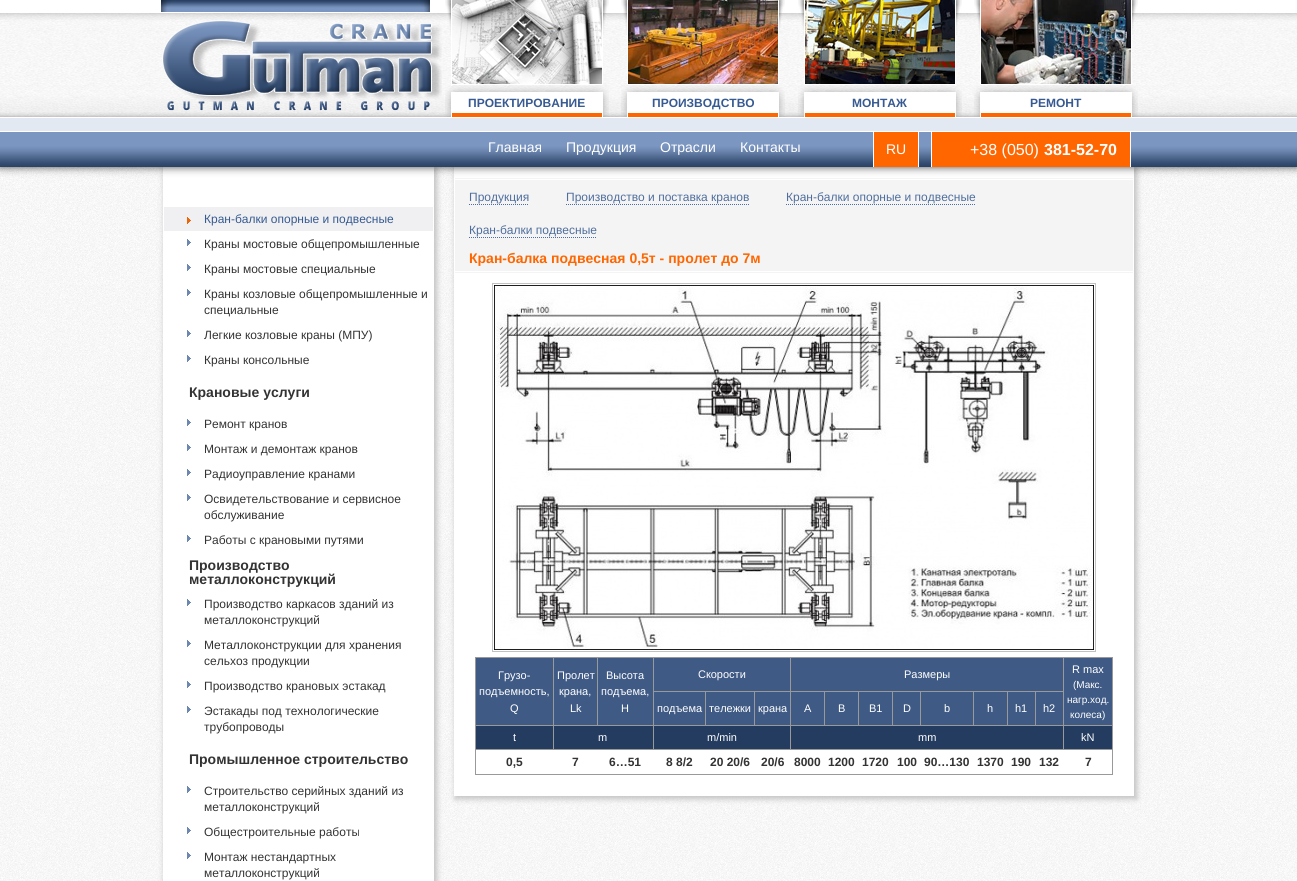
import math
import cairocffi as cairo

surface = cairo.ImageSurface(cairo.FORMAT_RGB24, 1297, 881)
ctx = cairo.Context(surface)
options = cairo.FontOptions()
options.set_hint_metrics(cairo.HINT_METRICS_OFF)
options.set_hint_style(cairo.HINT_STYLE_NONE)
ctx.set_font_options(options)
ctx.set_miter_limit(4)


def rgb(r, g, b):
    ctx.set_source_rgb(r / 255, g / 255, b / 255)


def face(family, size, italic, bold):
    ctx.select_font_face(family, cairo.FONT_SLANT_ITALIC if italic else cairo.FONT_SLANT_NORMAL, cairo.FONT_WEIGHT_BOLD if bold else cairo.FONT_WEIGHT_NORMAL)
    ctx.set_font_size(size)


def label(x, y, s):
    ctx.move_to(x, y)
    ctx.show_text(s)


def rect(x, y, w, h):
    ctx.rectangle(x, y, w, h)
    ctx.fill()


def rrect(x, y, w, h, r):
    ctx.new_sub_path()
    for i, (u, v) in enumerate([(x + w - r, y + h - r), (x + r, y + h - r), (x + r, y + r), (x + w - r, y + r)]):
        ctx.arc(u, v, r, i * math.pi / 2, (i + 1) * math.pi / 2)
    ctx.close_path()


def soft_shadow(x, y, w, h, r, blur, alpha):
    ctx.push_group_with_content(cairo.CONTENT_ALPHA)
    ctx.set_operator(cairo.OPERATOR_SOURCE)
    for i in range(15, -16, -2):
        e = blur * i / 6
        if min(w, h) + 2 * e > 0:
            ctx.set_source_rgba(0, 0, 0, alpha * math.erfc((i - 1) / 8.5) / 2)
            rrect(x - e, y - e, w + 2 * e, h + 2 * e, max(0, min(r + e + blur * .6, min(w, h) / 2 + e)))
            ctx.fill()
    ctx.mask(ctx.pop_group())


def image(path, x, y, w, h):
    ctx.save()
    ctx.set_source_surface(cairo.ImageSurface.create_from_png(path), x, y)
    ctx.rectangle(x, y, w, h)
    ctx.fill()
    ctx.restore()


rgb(255, 255, 255)
ctx.paint()
image('image0.png', 0, 167, 1297, 714)
rgb(193, 193, 193)
soft_shadow(164, 168, 273, 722, 0, 3, 1)
rgb(255, 255, 255)
rect(163, 167, 271, 714)
rgb(193, 193, 193)
soft_shadow(455, 168, 682, 631, 0, 3, 1)
rgb(255, 255, 255)
rect(454, 167, 680, 629)
rgb(244, 244, 244)
rect(455, 178, 678, 1)
rect(455, 180, 678, 91)
rgb(0, 0, 0)
soft_shadow(0, 0, 1297, 167, 0, 4.5, 0.7)
image('image1.png', 0, 0, 161, 167)
image('image2.png', 161, 0, 975, 167)
image('image3.png', 161, 0, 269, 12)
image('image4.png', 162, 20, 280, 91)
image('image5.png', 445, 0, 164, 117)
rgb(255, 255, 255)
rect(451, 13, 1, 71)
image('image6.png', 452, 0, 150, 84)
rect(602, 13, 1, 72)
rect(451, 84, 152, 1)
face('Liberation Sans', 12, 0, 1)
rgb(54, 90, 145)
label(468, 107, 'ПРОЕКТИРОВАНИЕ')
image('image7.png', 621, 0, 164, 117)
rgb(255, 255, 255)
rect(627, 13, 1, 71)
image('image8.png', 628, 0, 150, 84)
rect(778, 13, 1, 72)
rect(627, 84, 152, 1)
rgb(54, 90, 145)
label(652, 107, 'ПРОИЗВОДСТВО')
image('image9.png', 798, 0, 164, 117)
rgb(255, 255, 255)
rect(804, 13, 1, 71)
image('image10.png', 805, 0, 150, 84)
rect(955, 13, 1, 72)
rect(804, 84, 152, 1)
rgb(54, 90, 145)
label(852, 107, 'МОНТАЖ')
image('image1.png', 1136, 0, 161, 167)
image('image11.png', 974, 0, 164, 117)
rgb(255, 255, 255)
rect(980, 13, 1, 71)
image('image12.png', 981, 0, 150, 84)
rect(1131, 13, 1, 72)
rect(980, 84, 152, 1)
rgb(54, 90, 145)
label(1030, 107, 'РЕМОНТ')
face('Liberation Sans', 14, 0, 0)
rgb(255, 255, 255)
label(488, 152, 'Главная')
label(566, 152, 'Продукция')
label(660, 152, 'Отрасли')
label(740, 152, 'Контакты')
rgb(255, 102, 0)
rect(874, 132, 44, 35)
ctx.save()
ctx.rectangle(873, 132, 46, 35)
ctx.clip()
ctx.rectangle(873.5, 131.5, 45, 36)
rgb(255, 255, 255)
ctx.set_line_width(1)
ctx.stroke()
ctx.restore()
rgb(255, 255, 255)
label(886, 154, 'RU')
rgb(255, 102, 0)
rect(932, 132, 198, 35)
rgb(255, 255, 255)
rect(1130, 132, 1, 35)
rect(931, 132, 1, 35)
face('Liberation Sans', 16, 0, 0)
label(970, 155, '+38 (050)')
face('Liberation Sans', 16, 0, 1)
label(1044, 155, '381-52-70')
rgb(240, 240, 242)
rect(164, 207, 269, 24)
image('image13.png', 187, 217, 4, 7)
face('Liberation Sans', 12, 0, 0)
rgb(54, 90, 145)
label(204, 223, 'Кран-балки опорные и подвесные')
image('image14.png', 187, 239, 4, 7)
rgb(51, 51, 51)
label(204, 248, 'Краны мостовые общепромышленные')
image('image14.png', 187, 264, 4, 7)
label(204, 273, 'Краны мостовые специальные')
image('image14.png', 187, 289, 4, 7)
label(204, 298, 'Краны козловые общепромышленные и')
label(204, 314, 'специальные')
image('image14.png', 187, 330, 4, 7)
label(204, 339, 'Легкие козловые краны (МПУ)')
image('image14.png', 187, 355, 4, 7)
label(204, 364, 'Краны консольные')
face('Liberation Sans', 14, 0, 1)
label(189, 397, 'Крановые услуги')
image('image14.png', 187, 419, 4, 7)
face('Liberation Sans', 12, 0, 0)
label(204, 428, 'Ремонт кранов')
image('image14.png', 187, 444, 4, 7)
label(204, 453, 'Монтаж и демонтаж кранов')
image('image14.png', 187, 469, 4, 7)
label(204, 478, 'Радиоуправление кранами')
image('image14.png', 187, 494, 4, 7)
label(204, 503, 'Освидетельствование и сервисное')
label(204, 519, 'обслуживание')
image('image14.png', 187, 535, 4, 7)
label(204, 544, 'Работы с крановыми путями')
face('Liberation Sans', 14, 0, 1)
label(189, 570, 'Производство')
label(189, 584, 'металлоконструкций')
image('image14.png', 187, 599, 4, 7)
face('Liberation Sans', 12, 0, 0)
label(204, 608, 'Производство каркасов зданий из')
label(204, 624, 'металлоконструкций')
image('image14.png', 187, 640, 4, 7)
label(204, 649, 'Металлоконструкции для хранения')
label(204, 665, 'сельхоз продукции')
image('image14.png', 187, 681, 4, 7)
label(204, 690, 'Производство крановых эстакад')
image('image14.png', 187, 706, 4, 7)
label(204, 715, 'Эстакады под технологические')
label(204, 731, 'трубопроводы')
face('Liberation Sans', 14, 0, 1)
label(189, 764, 'Промышленное строительство')
image('image14.png', 187, 786, 4, 7)
face('Liberation Sans', 12, 0, 0)
label(204, 795, 'Строительство серийных зданий из')
label(204, 811, 'металлоконструкций')
image('image14.png', 187, 827, 4, 7)
label(204, 836, 'Общестроительные работы')
image('image14.png', 187, 852, 4, 7)
label(204, 861, 'Монтаж нестандартных')
label(204, 877, 'металлоконструкций')
rgb(244, 244, 244)
rect(455, 272, 678, 1)
rgb(79, 110, 158)
label(469, 201, 'Продукция')
ctx.new_path()
ctx.move_to(469, 204.5)
ctx.line_to(529, 204.5)
ctx.set_line_width(1)
ctx.set_dash([1, 1])
ctx.stroke()
label(566, 201, 'Производство и поставка кранов')
ctx.new_path()
ctx.move_to(566, 204.5)
ctx.line_to(749, 204.5)
ctx.stroke()
label(786, 201, 'Кран-балки опорные и подвесные')
ctx.new_path()
ctx.move_to(786, 204.5)
ctx.line_to(976, 204.5)
ctx.stroke()
label(469, 234, 'Кран-балки подвесные')
ctx.new_path()
ctx.move_to(469, 237.5)
ctx.line_to(597, 237.5)
ctx.stroke()
face('Liberation Sans', 14, 0, 1)
rgb(255, 102, 0)
label(469, 263, 'Кран-балка подвесная 0,5т - пролет до 7м')
ctx.rectangle(492.5, 283.5, 603, 368)
rgb(194, 194, 194)
ctx.set_dash([])
ctx.stroke()
image('image15.png', 494, 285, 600, 365)
rgb(153, 153, 153)
rect(475, 657, 638, 118)
rgb(63, 90, 133)
rect(476, 658, 77, 67)
face('Liberation Sans', 11, 0, 0)
rgb(255, 255, 255)
label(498, 679, 'Грузо-')
label(479, 695, 'подъемность,')
label(510, 712, 'Q')
rgb(63, 90, 133)
rect(554, 658, 43, 67)
rgb(255, 255, 255)
label(557, 679, 'Пролет')
label(559, 695, 'крана,')
label(570, 712, 'Lk')
rgb(63, 90, 133)
rect(598, 658, 55, 67)
rgb(255, 255, 255)
label(606, 679, 'Высота')
label(601, 695, 'подъема,')
label(621, 712, 'H')
rgb(63, 90, 133)
rect(654, 658, 136, 33)
rgb(255, 255, 255)
label(698, 678, 'Скорости')
rgb(63, 90, 133)
rect(791, 658, 272, 33)
rgb(255, 255, 255)
label(904, 678, 'Размеры')
rgb(63, 90, 133)
rect(1064, 658, 48, 67)
rgb(255, 255, 255)
label(1072, 673, 'R max')
face('Liberation Sans', 10, 0, 0)
label(1073, 688, '(Макс.')
label(1067, 703, 'нагр.ход.')
label(1070, 718, 'колеса)')
rgb(63, 90, 133)
rect(654, 692, 51, 33)
face('Liberation Sans', 11, 0, 0)
rgb(255, 255, 255)
label(657, 712, 'подъема')
rgb(63, 90, 133)
rect(706, 692, 48, 33)
rgb(255, 255, 255)
label(709, 712, 'тележки')
rgb(63, 90, 133)
rect(755, 692, 35, 33)
rgb(255, 255, 255)
label(758, 712, 'крана')
rgb(63, 90, 133)
rect(791, 692, 33, 33)
rgb(255, 255, 255)
label(804, 712, 'А')
rgb(63, 90, 133)
rect(825, 692, 33, 33)
rgb(255, 255, 255)
label(838, 712, 'B')
rgb(63, 90, 133)
rect(859, 692, 33, 33)
rgb(255, 255, 255)
label(869, 712, 'B1')
rgb(63, 90, 133)
rect(893, 692, 27, 33)
rgb(255, 255, 255)
label(903, 712, 'D')
rgb(63, 90, 133)
rect(921, 692, 52, 33)
rgb(255, 255, 255)
label(944, 712, 'b')
rgb(63, 90, 133)
rect(974, 692, 33, 33)
rgb(255, 255, 255)
label(987, 712, 'h')
rgb(63, 90, 133)
rect(1008, 692, 27, 33)
rgb(255, 255, 255)
label(1015, 712, 'h1')
rgb(63, 90, 133)
rect(1036, 692, 27, 33)
rgb(255, 255, 255)
label(1043, 712, 'h2')
rgb(36, 60, 96)
rect(476, 726, 77, 23)
rgb(255, 255, 255)
label(513, 741, 't')
rgb(36, 60, 96)
rect(554, 726, 99, 23)
rgb(255, 255, 255)
label(598, 741, 'm')
rgb(36, 60, 96)
rect(654, 726, 136, 23)
rgb(255, 255, 255)
label(707, 741, 'm/min')
rgb(36, 60, 96)
rect(791, 726, 272, 23)
rgb(255, 255, 255)
label(918, 741, 'mm')
rgb(36, 60, 96)
rect(1064, 726, 48, 23)
rgb(255, 255, 255)
label(1081, 741, 'kN')
rect(476, 750, 636, 24)
face('Liberation Sans', 12, 0, 1)
rgb(51, 51, 51)
label(506, 766, '0,5')
label(572, 766, '7')
label(609, 766, '6…51')
label(666, 766, '8 8/2')
label(710, 766, '20 20/6')
label(761, 766, '20/6')
label(794, 766, '8000')
label(828, 766, '1200')
label(862, 766, '1720')
label(897, 766, '100')
label(924, 766, '90…130')
label(977, 766, '1370')
label(1011, 766, '190')
label(1039, 766, '132')
label(1085, 766, '7')
surface.write_to_png('render.png')
